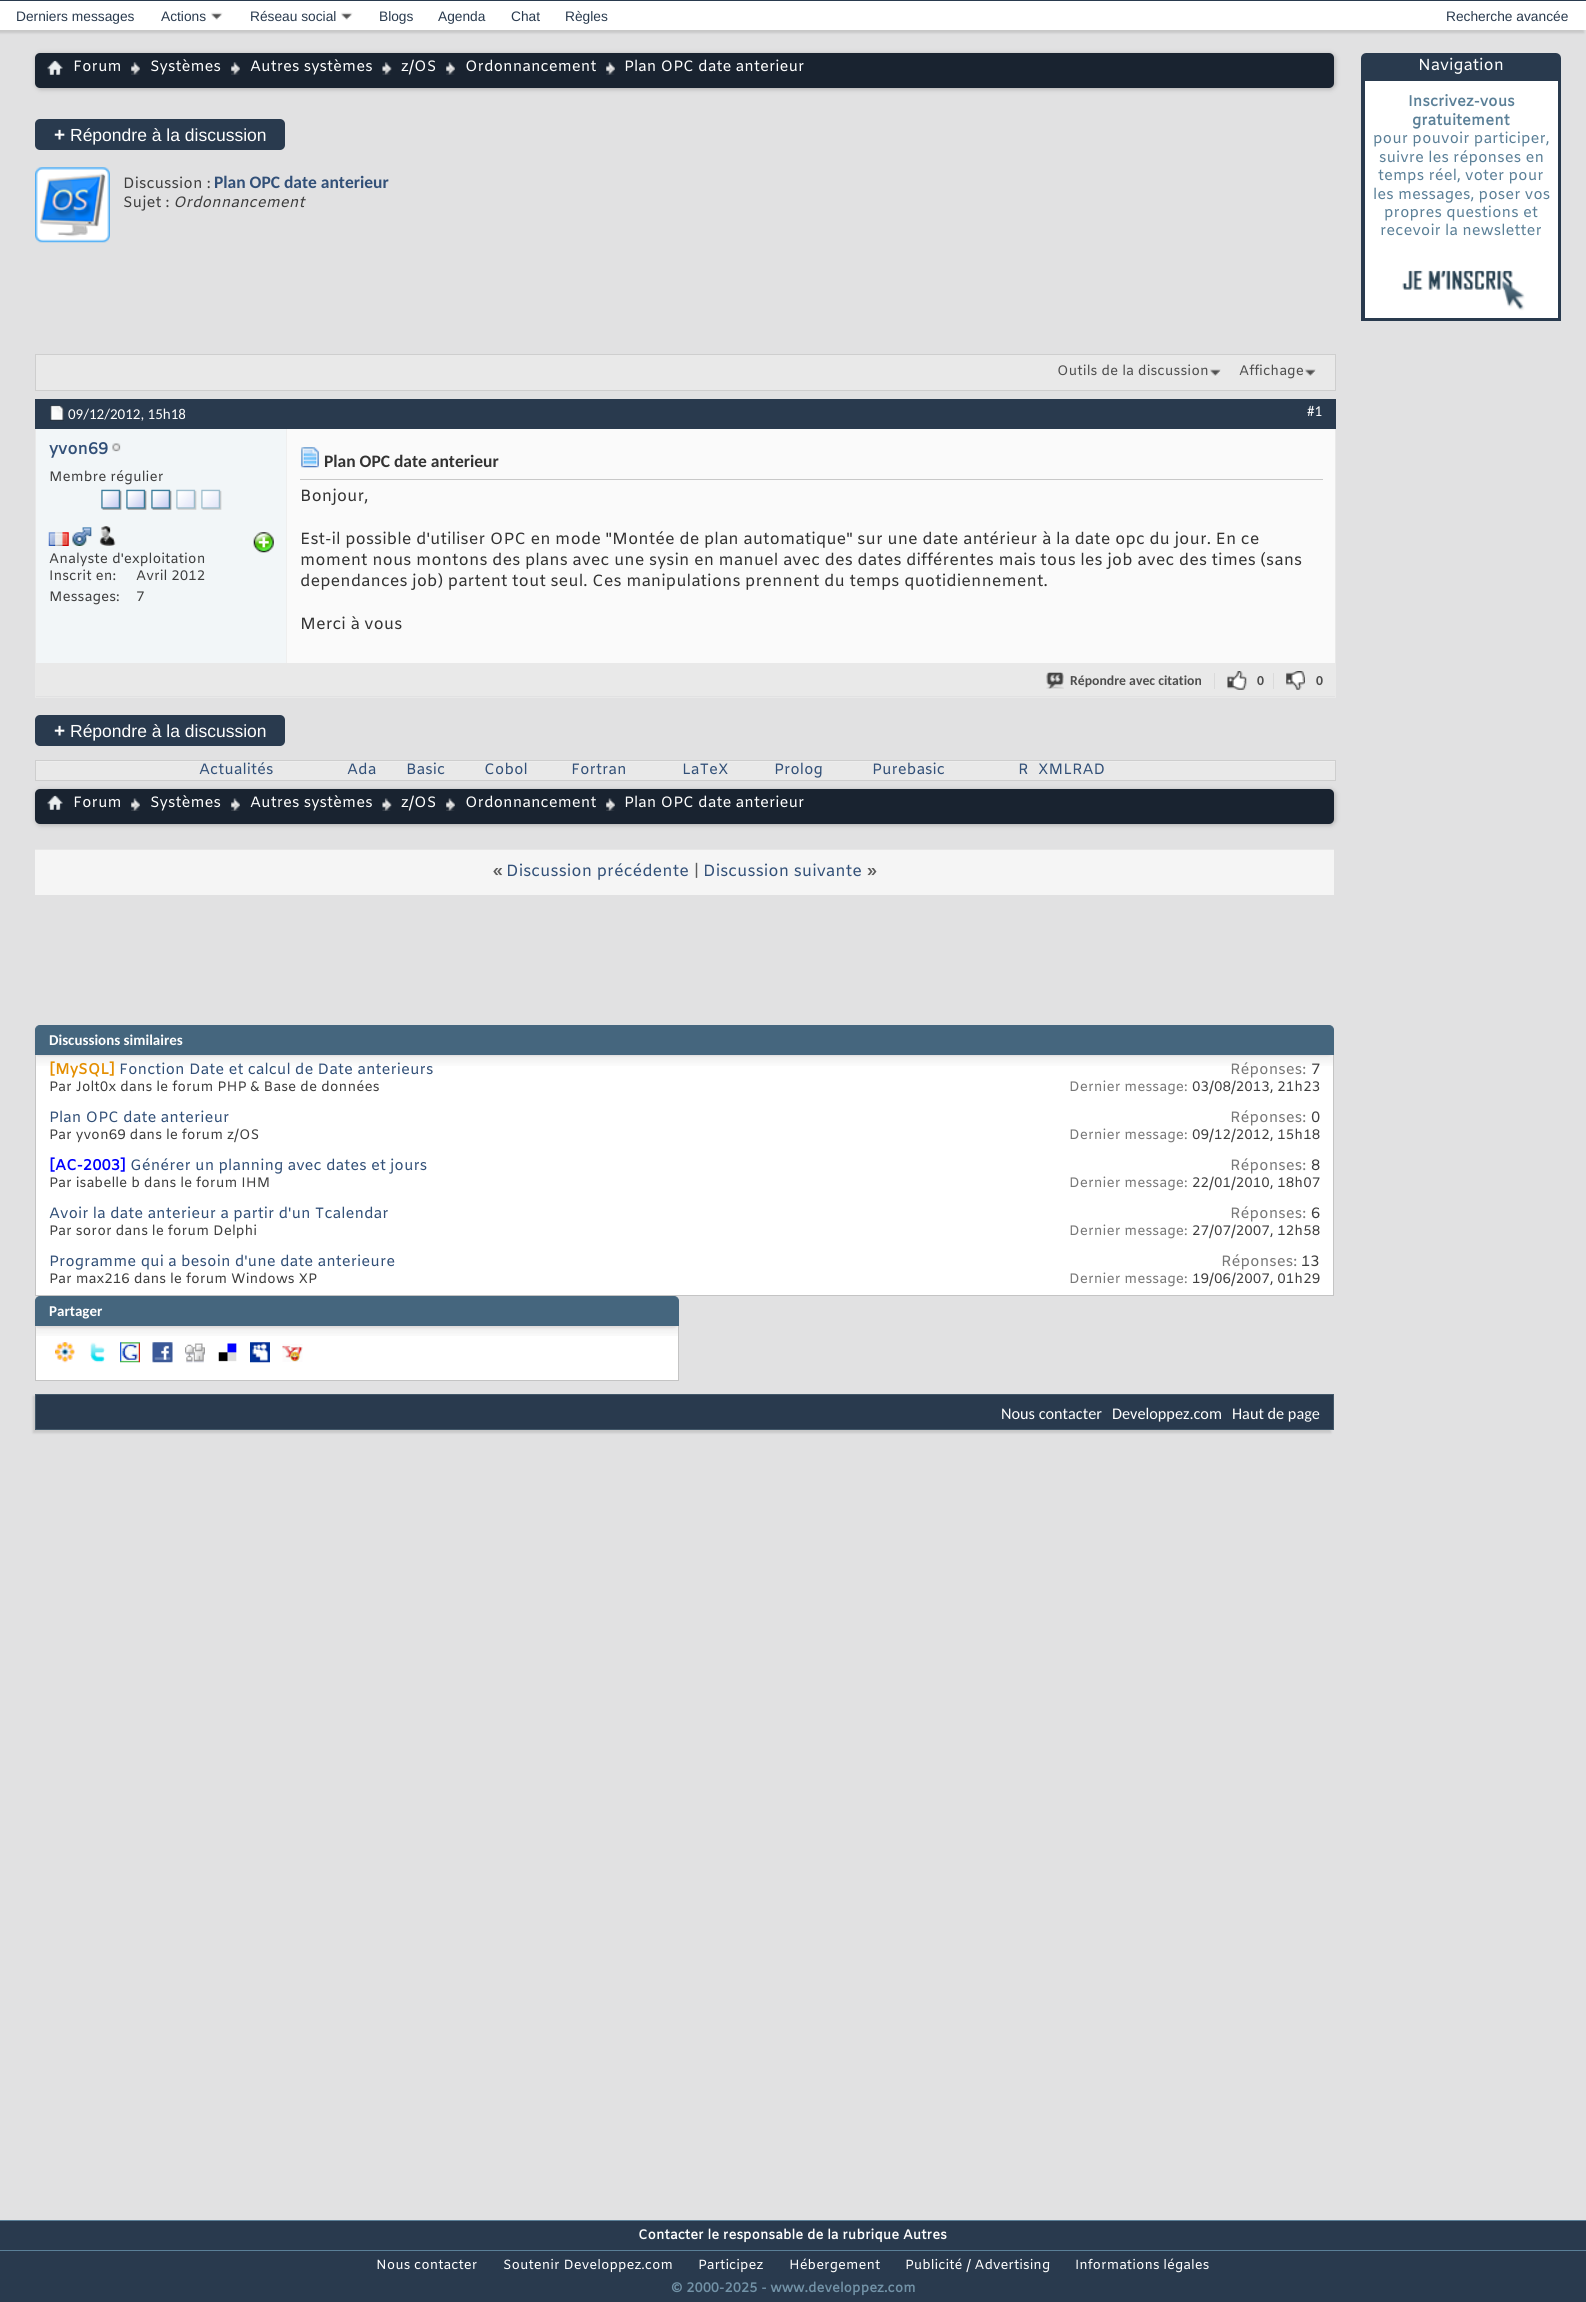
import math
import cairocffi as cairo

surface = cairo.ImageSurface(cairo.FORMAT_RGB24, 1586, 2302)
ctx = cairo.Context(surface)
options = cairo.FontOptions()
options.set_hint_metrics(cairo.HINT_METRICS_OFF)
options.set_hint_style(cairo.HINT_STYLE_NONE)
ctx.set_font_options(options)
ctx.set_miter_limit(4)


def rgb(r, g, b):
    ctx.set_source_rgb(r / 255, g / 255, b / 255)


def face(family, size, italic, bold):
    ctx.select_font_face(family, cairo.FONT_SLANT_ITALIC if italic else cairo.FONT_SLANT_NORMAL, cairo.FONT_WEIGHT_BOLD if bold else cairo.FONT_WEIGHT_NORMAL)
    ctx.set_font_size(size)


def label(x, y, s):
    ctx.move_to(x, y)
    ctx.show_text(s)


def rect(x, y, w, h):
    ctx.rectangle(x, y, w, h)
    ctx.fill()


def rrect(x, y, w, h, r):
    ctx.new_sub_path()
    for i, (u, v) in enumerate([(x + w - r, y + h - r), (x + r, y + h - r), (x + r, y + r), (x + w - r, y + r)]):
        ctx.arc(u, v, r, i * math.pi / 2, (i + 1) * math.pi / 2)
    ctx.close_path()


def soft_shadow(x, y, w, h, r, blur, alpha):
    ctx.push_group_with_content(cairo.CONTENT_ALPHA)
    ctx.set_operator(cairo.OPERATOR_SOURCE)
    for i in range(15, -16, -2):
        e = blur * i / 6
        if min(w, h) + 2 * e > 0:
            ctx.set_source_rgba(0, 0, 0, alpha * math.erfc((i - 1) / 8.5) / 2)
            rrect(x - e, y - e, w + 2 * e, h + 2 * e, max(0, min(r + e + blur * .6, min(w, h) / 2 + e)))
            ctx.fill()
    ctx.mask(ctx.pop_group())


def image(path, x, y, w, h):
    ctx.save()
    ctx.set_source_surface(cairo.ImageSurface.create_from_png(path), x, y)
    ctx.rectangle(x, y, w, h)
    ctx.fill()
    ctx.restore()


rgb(41, 58, 78)
ctx.paint()
rgb(225, 225, 226)
rect(0, 30, 1586, 2053)
rgb(200, 200, 200)
soft_shadow(-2, -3, 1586, 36, 0, 1, 1)
rgb(255, 255, 255)
rect(0, 1, 1586, 29)
rgb(41, 58, 78)
rect(0, 0, 1586, 1)
face('Liberation Sans', 13.75, 0, 0)
label(16, 21, 'Derniers messages')
label(161, 21, 'Actions')
image('image0.png', 211, 12, 12, 8)
label(250, 21, 'Réseau social')
image('image0.png', 341, 12, 12, 8)
label(379, 21, 'Blogs')
label(438, 21, 'Agenda')
label(511, 21, 'Chat')
label(565, 21, 'Règles')
label(1446, 21, 'Recherche avancée')
rgb(173, 173, 173)
soft_shadow(36, 54, 1299, 35, 5, 2.5, 1)
rgb(25, 35, 48)
rrect(35, 53, 1299, 35, 5)
ctx.fill()
image('image1.png', 47, 60, 16, 15)
image('image2.png', 131, 62, 9, 13)
face('Amiko', 15, 0, 0)
rgb(255, 255, 255)
label(73, 71, 'Forum')
image('image2.png', 231, 62, 9, 13)
label(150, 71, 'Systèmes')
image('image3.png', 382, 62, 10, 13)
label(250, 71, 'Autres systèmes')
image('image2.png', 446, 62, 9, 13)
label(401, 71, 'z/OS')
image('image2.png', 606, 62, 9, 13)
label(465, 71, 'Ordonnancement')
label(624, 71, 'Plan OPC date anterieur')
rgb(41, 58, 78)
rrect(35, 119, 250, 31, 5)
ctx.fill()
face('Liberation Sans', 19, 0, 1)
rgb(255, 255, 255)
label(54, 141, '+')
face('Liberation Sans', 17.5, 0, 0)
label(70, 141, 'Répondre à la discussion')
image('image4.png', 35, 167, 75, 76)
face('Amiko', 15, 0, 0)
rgb(62, 62, 62)
label(123, 188, 'Discussion :')
face('Carlito', 17.5, 0, 1)
rgb(50, 80, 120)
label(214, 188, 'Plan OPC date anterieur')
face('Amiko', 15, 0, 0)
rgb(62, 62, 62)
label(123, 207, 'Sujet :')
face('Amiko', 15, 1, 0)
label(173, 207, 'Ordonnancement')
rgb(233, 233, 233)
ctx.rectangle(35.5, 354.5, 1300, 36)
ctx.fill_preserve()
rgb(206, 206, 206)
ctx.set_line_width(1)
ctx.stroke()
image('image5.png', 1210, 369, 11, 8)
face('Amiko', 13.75, 0, 0)
rgb(78, 78, 78)
label(1057, 375, 'Outils de la discussion')
image('image6.png', 1305, 369, 11, 8)
label(1239, 375, 'Affichage')
ctx.rectangle(35.5, 399.5, 1300, 298)
rgb(233, 233, 233)
ctx.stroke()
rgb(41, 58, 78)
rect(35, 399, 1301, 30)
image('image7.png', 50, 405, 14, 16)
face('Carlito', 15, 0, 0)
rgb(255, 255, 255)
label(68, 419, '09/12/2012, 15h18')
label(1307, 416, '#1')
rgb(242, 246, 248)
rect(36, 429, 250, 234)
face('Amiko', 16.25, 0, 1)
rgb(50, 80, 120)
label(49, 454, 'yvon69')
image('image8.png', 112, 443, 9, 9)
face('Amiko', 13.75, 0, 0)
rgb(62, 62, 62)
label(49, 481, 'Membre régulier')
image('image9.png', 101, 489, 21, 21)
image('image9.png', 126, 489, 21, 21)
image('image9.png', 151, 489, 21, 21)
image('image10.png', 176, 489, 21, 21)
image('image10.png', 201, 489, 21, 21)
image('image11.png', 253, 532, 21, 21)
image('image12.png', 48, 532, 21, 14)
image('image13.png', 72, 527, 20, 19)
image('image14.png', 99, 526, 17, 20)
label(49, 563, 'Analyste d\'exploitation')
label(49, 580, 'Inscrit en:')
label(136, 580, 'Avril 2012')
label(49, 601, 'Messages:')
label(136, 601, '7')
rgb(250, 250, 250)
rect(287, 429, 1048, 234)
rgb(239, 239, 239)
rect(286, 429, 1, 234)
rgb(200, 200, 200)
rect(300, 479, 1023, 1)
image('image15.png', 301, 447, 18, 21)
face('Carlito', 17.5, 0, 1)
rgb(51, 51, 51)
label(324, 467, 'Plan OPC date anterieur')
face('Amiko', 16.25, 0, 0)
label(300, 501, 'Bonjour,')
label(300, 544, 'Est-il possible d\'utiliser OPC en mode "Montée de plan automatique" sur une date antérieur à la date opc du jour. En ce')
label(300, 565, 'moment nous montons des plans avec une sysin en manuel avec des dates différentes mais tous les job avec des times (sans')
label(300, 586, 'dependances job) partent tout seul. Ces manipulations prennent du temps quotidiennement.')
label(300, 629, 'Merci à vous')
rgb(233, 233, 233)
rect(36, 663, 1299, 33)
image('image16.png', 1046, 672, 18, 17)
face('Carlito', 13.75, 0, 1)
rgb(78, 78, 78)
label(1070, 685, 'Répondre avec citation')
rgb(218, 218, 218)
rect(1214, 673, 1, 16)
image('image17.png', 1227, 671, 20, 19)
rgb(78, 78, 78)
label(1257, 685, '0')
rgb(218, 218, 218)
rect(1273, 673, 1, 16)
image('image18.png', 1286, 671, 19, 19)
rgb(78, 78, 78)
label(1316, 685, '0')
rgb(41, 58, 78)
rrect(35, 715, 250, 31, 5)
ctx.fill()
face('Liberation Sans', 19, 0, 1)
rgb(255, 255, 255)
label(54, 737, '+')
face('Liberation Sans', 17.5, 0, 0)
label(70, 737, 'Répondre à la discussion')
rgb(233, 233, 233)
rect(36, 762, 1299, 18)
rgb(237, 237, 237)
rect(35, 761, 1301, 1)
ctx.rectangle(35.5, 760.5, 1300, 20)
rgb(206, 206, 206)
ctx.stroke()
face('Amiko', 15, 0, 0)
rgb(50, 80, 120)
label(199, 774, 'Actualités')
label(347, 774, 'Ada')
label(406, 774, 'Basic')
label(484, 774, 'Cobol')
label(571, 774, 'Fortran')
label(682, 774, 'LaTeX')
label(774, 774, 'Prolog')
label(872, 774, 'Purebasic')
label(1018, 774, 'R')
label(1038, 774, 'XMLRAD')
rgb(173, 173, 173)
soft_shadow(36, 790, 1299, 35, 5, 2.5, 1)
rgb(25, 35, 48)
rrect(35, 789, 1299, 35, 5)
ctx.fill()
image('image1.png', 47, 795, 16, 15)
image('image19.png', 131, 798, 9, 13)
rgb(255, 255, 255)
label(73, 807, 'Forum')
image('image19.png', 231, 798, 9, 13)
label(150, 807, 'Systèmes')
image('image20.png', 382, 798, 10, 13)
label(250, 807, 'Autres systèmes')
image('image19.png', 446, 798, 9, 13)
label(401, 807, 'z/OS')
image('image19.png', 606, 798, 9, 13)
label(465, 807, 'Ordonnancement')
label(624, 807, 'Plan OPC date anterieur')
rgb(245, 245, 245)
rect(35, 850, 1299, 45)
rgb(231, 231, 231)
rect(35, 849, 1299, 1)
face('Amiko', 16.25, 0, 1)
rgb(93, 93, 93)
label(493, 876, '«')
face('Amiko', 16.25, 0, 0)
rgb(50, 80, 120)
label(506, 876, 'Discussion précédente')
rgb(93, 93, 93)
label(694, 876, '|')
rgb(50, 80, 120)
label(703, 876, 'Discussion suivante')
face('Amiko', 16.25, 0, 1)
rgb(93, 93, 93)
label(867, 876, '»')
rgb(255, 255, 255)
rect(36, 1055, 1297, 240)
image('image21.png', 36, 1055, 1297, 11)
rgb(196, 196, 196)
rect(1333, 1055, 1, 241)
rect(35, 1295, 1299, 1)
rect(35, 1055, 1, 241)
rgb(222, 219, 219)
soft_shadow(34, 1026, 1299, 30, 5, 1, 1)
rgb(69, 102, 126)
ctx.new_path()
ctx.move_to(40, 1025.5)
ctx.line_to(1329, 1025.5)
ctx.curve_to(1331.5, 1025.5, 1333.5, 1027.5, 1333.5, 1030)
ctx.line_to(1333.5, 1054.5)
ctx.line_to(35.5, 1054.5)
ctx.line_to(35.5, 1030)
ctx.curve_to(35.5, 1027.5, 37.5, 1025.5, 40, 1025.5)
ctx.close_path()
ctx.fill_preserve()
ctx.stroke()
face('Carlito', 15, 0, 1)
rgb(255, 255, 255)
label(49, 1045, 'Discussions similaires')
face('Amiko', 15, 0, 1)
rgb(228, 142, 0)
label(49, 1074, '[MySQL]')
face('Amiko', 15, 0, 0)
rgb(50, 80, 120)
label(119, 1074, 'Fonction Date et calcul de Date anterieurs')
face('Amiko', 13.75, 0, 0)
rgb(62, 62, 62)
label(49, 1091, 'Par Jolt0x dans le forum PHP & Base de données')
face('Amiko', 15, 0, 0)
rgb(119, 119, 119)
label(1230, 1074, 'Réponses:')
rgb(62, 62, 62)
label(1311, 1074, '7')
face('Amiko', 13.75, 0, 0)
rgb(119, 119, 119)
label(1069, 1091, 'Dernier message:')
rgb(62, 62, 62)
label(1192, 1091, '03/08/2013, 21h23')
face('Amiko', 15, 0, 0)
rgb(50, 80, 120)
label(49, 1122, 'Plan OPC date anterieur')
face('Amiko', 13.75, 0, 0)
rgb(62, 62, 62)
label(49, 1139, 'Par yvon69 dans le forum z/OS')
face('Amiko', 15, 0, 0)
rgb(119, 119, 119)
label(1230, 1122, 'Réponses:')
rgb(62, 62, 62)
label(1311, 1122, '0')
face('Amiko', 13.75, 0, 0)
rgb(119, 119, 119)
label(1069, 1139, 'Dernier message:')
rgb(62, 62, 62)
label(1192, 1139, '09/12/2012, 15h18')
face('Amiko', 15, 0, 1)
rgb(0, 0, 255)
label(49, 1170, '[AC-2003]')
face('Amiko', 15, 0, 0)
rgb(50, 80, 120)
label(130, 1170, 'Générer un planning avec dates et jours')
face('Amiko', 13.75, 0, 0)
rgb(62, 62, 62)
label(49, 1187, 'Par isabelle b dans le forum IHM')
face('Amiko', 15, 0, 0)
rgb(119, 119, 119)
label(1230, 1170, 'Réponses:')
rgb(62, 62, 62)
label(1311, 1170, '8')
face('Amiko', 13.75, 0, 0)
rgb(119, 119, 119)
label(1069, 1187, 'Dernier message:')
rgb(62, 62, 62)
label(1192, 1187, '22/01/2010, 18h07')
face('Amiko', 15, 0, 0)
rgb(50, 80, 120)
label(49, 1218, 'Avoir la date anterieur a partir d\'un Tcalendar')
face('Amiko', 13.75, 0, 0)
rgb(62, 62, 62)
label(49, 1235, 'Par soror dans le forum Delphi')
face('Amiko', 15, 0, 0)
rgb(119, 119, 119)
label(1230, 1218, 'Réponses:')
rgb(62, 62, 62)
label(1311, 1218, '6')
face('Amiko', 13.75, 0, 0)
rgb(119, 119, 119)
label(1069, 1235, 'Dernier message:')
rgb(62, 62, 62)
label(1192, 1235, '27/07/2007, 12h58')
face('Amiko', 15, 0, 0)
rgb(50, 80, 120)
label(49, 1266, 'Programme qui a besoin d\'une date anterieure')
face('Amiko', 13.75, 0, 0)
rgb(62, 62, 62)
label(49, 1283, 'Par max216 dans le forum Windows XP')
face('Amiko', 15, 0, 0)
rgb(119, 119, 119)
label(1221, 1266, 'Réponses:')
rgb(62, 62, 62)
label(1301, 1266, '13')
face('Amiko', 13.75, 0, 0)
rgb(119, 119, 119)
label(1069, 1283, 'Dernier message:')
rgb(62, 62, 62)
label(1192, 1283, '19/06/2007, 01h29')
rgb(255, 255, 255)
rect(36, 1326, 642, 54)
image('image22.png', 36, 1326, 642, 10)
rgb(196, 196, 196)
rect(678, 1326, 1, 55)
rect(35, 1380, 644, 1)
rect(35, 1326, 1, 55)
rgb(222, 219, 219)
soft_shadow(34, 1298, 644, 30, 5, 1, 1)
rgb(69, 102, 126)
ctx.new_path()
ctx.move_to(40, 1296.5)
ctx.line_to(674, 1296.5)
ctx.curve_to(676.5, 1296.5, 678.5, 1298.5, 678.5, 1301)
ctx.line_to(678.5, 1325.5)
ctx.line_to(35.5, 1325.5)
ctx.line_to(35.5, 1301)
ctx.curve_to(35.5, 1298.5, 37.5, 1296.5, 40, 1296.5)
ctx.close_path()
ctx.fill_preserve()
ctx.stroke()
face('Carlito', 15, 0, 1)
rgb(255, 255, 255)
label(49, 1316, 'Partager')
image('image23.png', 55, 1342, 20, 21)
image('image24.png', 90, 1342, 16, 21)
image('image25.png', 120, 1342, 20, 21)
image('image26.png', 152, 1342, 21, 21)
image('image27.png', 185, 1343, 20, 20)
image('image28.png', 218, 1343, 19, 19)
image('image29.png', 250, 1342, 20, 21)
image('image30.png', 282, 1344, 21, 18)
rgb(200, 200, 200)
soft_shadow(33, 1396, 1298, 37, 0, 1, 1)
rgb(41, 58, 78)
ctx.rectangle(35.5, 1394.5, 1298, 35)
ctx.fill_preserve()
rgb(66, 87, 105)
ctx.stroke()
face('Carlito', 16.25, 0, 0)
rgb(255, 255, 255)
label(1001, 1419, 'Nous contacter')
label(1112, 1419, 'Developpez.com')
label(1232, 1419, 'Haut de page')
rgb(41, 58, 78)
ctx.new_path()
ctx.move_to(1366, 55)
ctx.line_to(1556, 55)
ctx.curve_to(1557.5, 55, 1559, 56.5, 1559, 58)
ctx.line_to(1559, 319)
ctx.line_to(1363, 319)
ctx.line_to(1363, 58)
ctx.curve_to(1363, 56.5, 1364.5, 55, 1366, 55)
ctx.close_path()
ctx.fill_preserve()
ctx.set_line_width(4)
ctx.stroke()
face('Amiko', 16, 0, 0)
rgb(255, 255, 255)
label(1418, 70, 'Navigation')
rect(1365, 81, 193, 237)
face('Amiko', 15, 0, 1)
rgb(90, 127, 151)
label(1408, 106, 'Inscrivez-vous')
label(1412, 125, 'gratuitement')
face('Amiko', 15, 0, 0)
label(1373, 143, 'pour pouvoir participer,')
label(1379, 162, 'suivre les réponses en')
label(1378, 180, 'temps réel, voter pour')
label(1373, 199, 'les messages, poser vos')
label(1384, 217, 'propres questions et')
label(1380, 235, 'recevoir la newsletter')
image('image31.png', 1402, 270, 123, 41)
rgb(225, 225, 226)
rect(0, 2083, 1586, 137)
rgb(90, 127, 151)
rect(0, 2220, 1586, 1)
rect(0, 2250, 1586, 1)
face('Amiko', 13.3, 0, 1)
rgb(255, 255, 255)
label(638, 2239, 'Contacter le responsable de la rubrique Autres')
face('Amiko', 13.3, 0, 0)
label(376, 2269, 'Nous contacter')
label(503, 2269, 'Soutenir Developpez.com')
label(698, 2269, 'Participez')
label(789, 2269, 'Hébergement')
label(905, 2269, 'Publicité / Advertising')
label(1075, 2269, 'Informations légales')
face('Amiko', 13.3, 0, 1)
rgb(114, 146, 167)
label(671, 2292, '© 2000-2025 - www.developpez.com')
surface.write_to_png('render.png')
